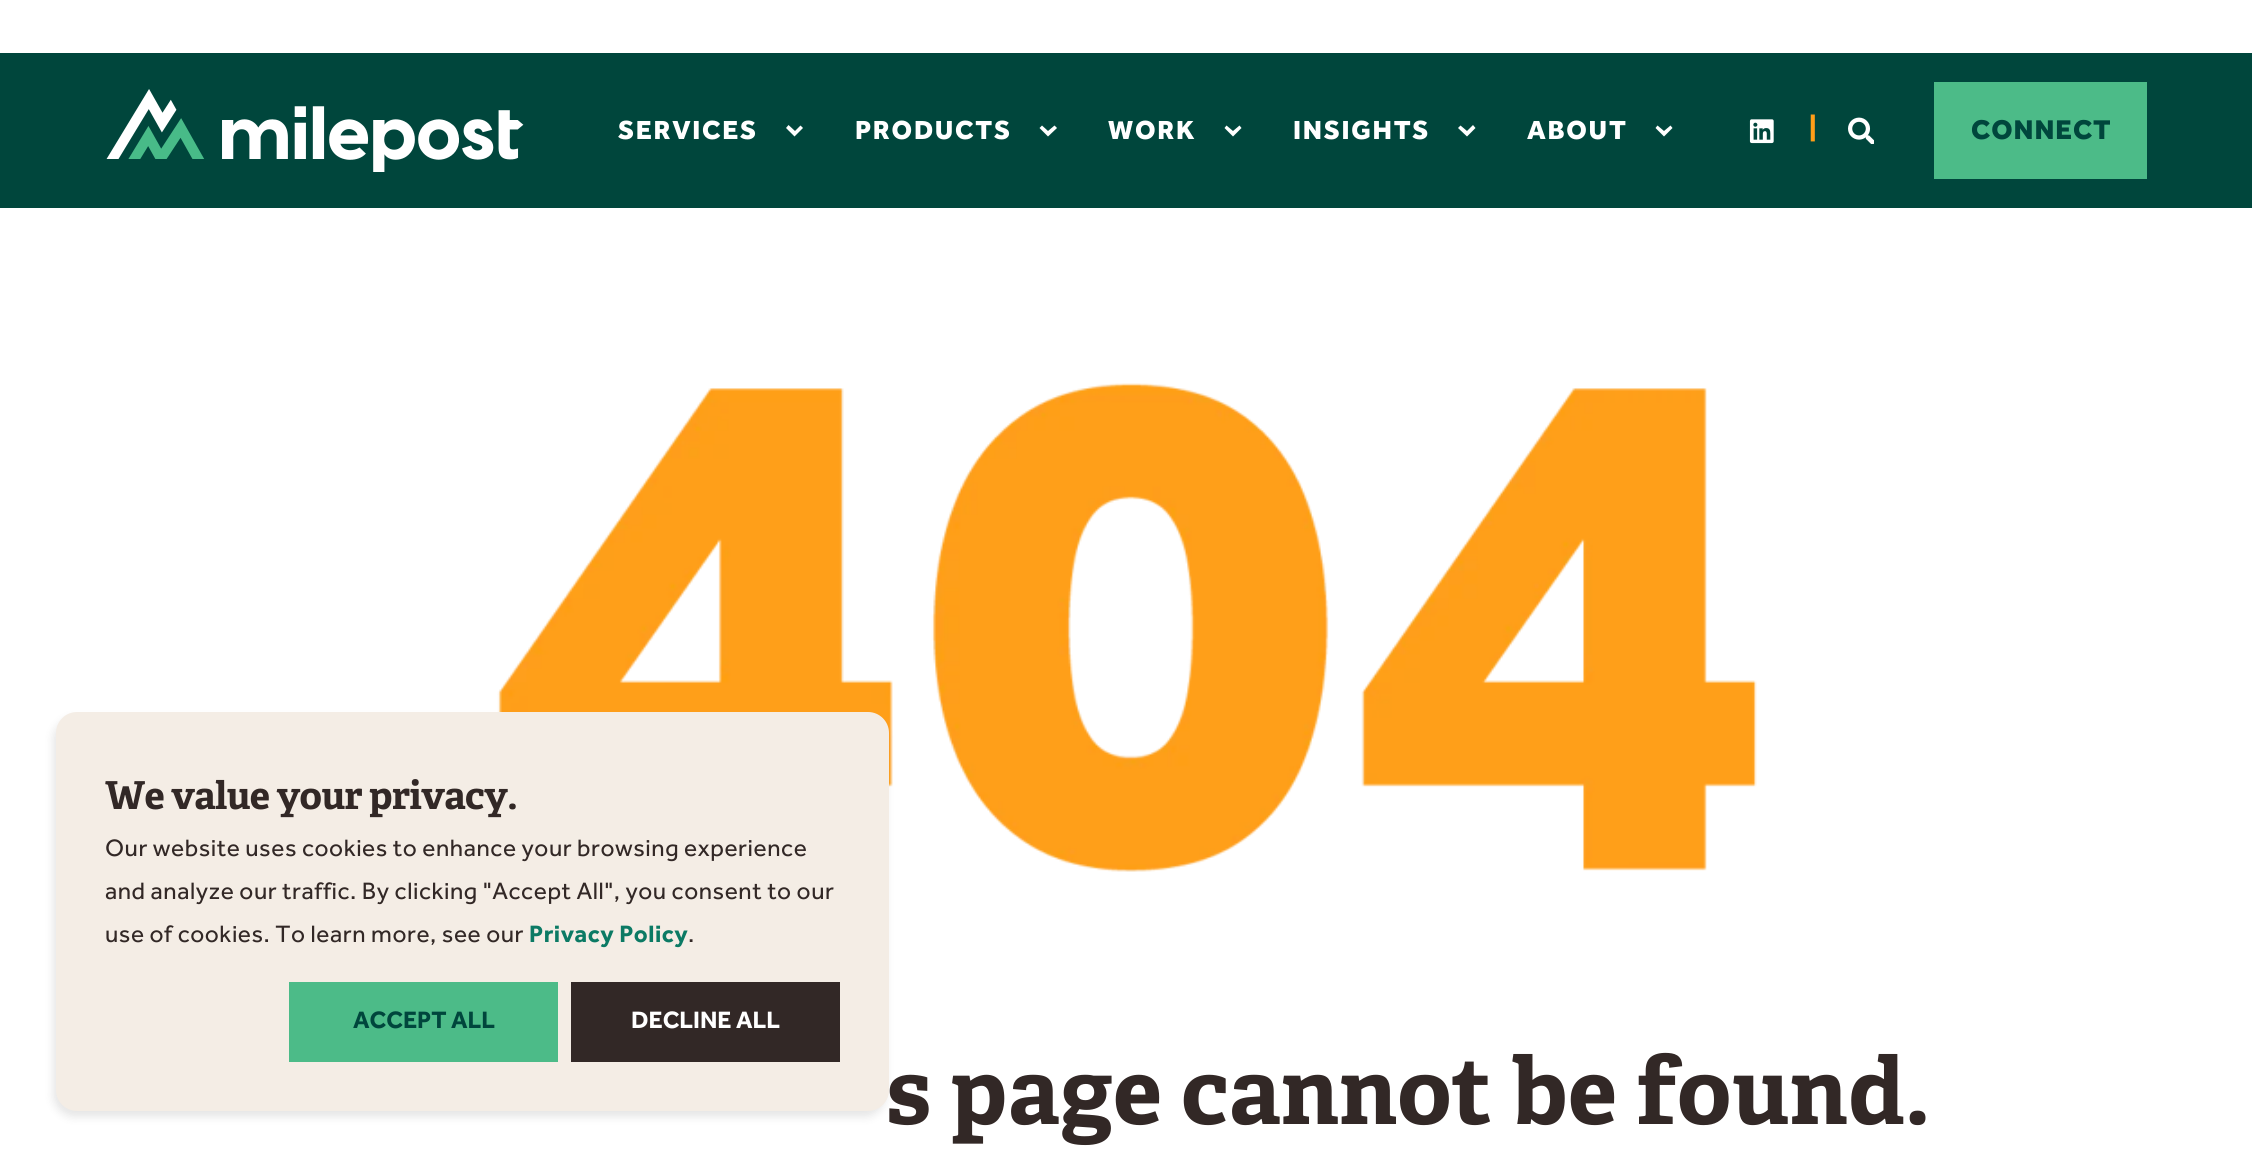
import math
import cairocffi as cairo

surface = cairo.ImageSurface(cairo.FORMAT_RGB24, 2252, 1166)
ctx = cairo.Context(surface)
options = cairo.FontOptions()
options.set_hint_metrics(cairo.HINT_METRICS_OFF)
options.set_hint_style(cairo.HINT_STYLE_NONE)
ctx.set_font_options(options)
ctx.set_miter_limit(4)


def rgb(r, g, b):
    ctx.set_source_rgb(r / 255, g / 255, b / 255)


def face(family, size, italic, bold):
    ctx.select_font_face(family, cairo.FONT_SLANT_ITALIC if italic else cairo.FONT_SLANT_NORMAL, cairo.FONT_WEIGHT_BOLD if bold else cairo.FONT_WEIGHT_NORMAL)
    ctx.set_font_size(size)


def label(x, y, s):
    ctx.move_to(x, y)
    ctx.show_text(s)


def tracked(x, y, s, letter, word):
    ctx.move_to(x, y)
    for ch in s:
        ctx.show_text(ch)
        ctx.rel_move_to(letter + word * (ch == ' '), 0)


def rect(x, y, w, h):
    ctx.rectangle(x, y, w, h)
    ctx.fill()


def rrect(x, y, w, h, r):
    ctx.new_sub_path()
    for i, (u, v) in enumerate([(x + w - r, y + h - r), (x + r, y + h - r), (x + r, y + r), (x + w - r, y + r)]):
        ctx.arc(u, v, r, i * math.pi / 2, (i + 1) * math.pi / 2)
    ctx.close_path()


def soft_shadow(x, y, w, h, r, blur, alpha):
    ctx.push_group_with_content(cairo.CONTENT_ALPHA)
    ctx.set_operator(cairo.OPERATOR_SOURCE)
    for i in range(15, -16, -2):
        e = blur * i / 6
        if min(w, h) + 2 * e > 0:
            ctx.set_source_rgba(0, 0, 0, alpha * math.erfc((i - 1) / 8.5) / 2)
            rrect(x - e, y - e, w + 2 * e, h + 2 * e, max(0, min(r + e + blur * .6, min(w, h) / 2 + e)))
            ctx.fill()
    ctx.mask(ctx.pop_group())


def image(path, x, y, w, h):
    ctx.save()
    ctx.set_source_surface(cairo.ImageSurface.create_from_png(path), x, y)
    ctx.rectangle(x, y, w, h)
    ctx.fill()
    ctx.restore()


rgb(255, 255, 255)
ctx.paint()
image('image3.png', 497, 383, 1260, 489)
rgb(0, 0, 0)
soft_shadow(53, 718, 833, 399, 21, 4.5, 0.1)
rgb(244, 237, 229)
rrect(56, 712, 833, 399, 21)
ctx.fill()
face('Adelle', 38.5, 0, 1)
rgb(50, 40, 38)
tracked(105, 809, 'We value your privacy.', -0.7, 0)
face('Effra', 24.5, 0, 0)
tracked(105, 856, 'Our website uses cookies to enhance your browsing experience', 0.53, 0)
tracked(105, 899, 'and analyze our traffic. By clicking "Accept All", you consent to our', 0.53, 0)
tracked(105, 942, 'use of cookies. To learn more, see our', 0.53, 0)
face('Effra', 24.5, 0, 1)
rgb(11, 122, 100)
tracked(529, 942, 'Privacy Policy', 0.53, 0)
face('Effra', 24.5, 0, 0)
rgb(50, 40, 38)
tracked(688, 942, '.', 0.53, 0)
rgb(76, 187, 136)
rect(289, 982, 269, 80)
face('Effra', 24.5, 0, 1)
rgb(0, 70, 60)
label(353, 1028, 'ACCEPT ALL')
rgb(50, 40, 38)
rect(571, 982, 269, 80)
rgb(255, 255, 255)
label(631, 1028, 'DECLINE ALL')
rgb(0, 70, 60)
rect(0, 53, 2252, 155)
image('image0.png', 106, 89, 418, 83)
face('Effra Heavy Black', 27, 0, 0)
rgb(255, 255, 255)
tracked(618, 139, 'SERVICES', 1.75, 0)
ctx.new_path()
ctx.move_to(803, 128)
ctx.line_to(800.5, 125.5)
ctx.line_to(795, 131)
ctx.line_to(788.5, 125)
ctx.line_to(786, 128)
ctx.line_to(794.5, 136.5)
ctx.close_path()
ctx.fill()
tracked(855, 139, 'PRODUCTS', 1.75, 0)
ctx.new_path()
ctx.move_to(1057, 128)
ctx.line_to(1054.5, 125.5)
ctx.line_to(1048, 131)
ctx.line_to(1042, 125.5)
ctx.line_to(1039.5, 128)
ctx.line_to(1048, 136.5)
ctx.close_path()
ctx.fill()
tracked(1108, 139, 'WORK', 1.75, 0)
ctx.new_path()
ctx.move_to(1241.5, 128)
ctx.line_to(1239.5, 125.5)
ctx.line_to(1233, 131)
ctx.line_to(1226.5, 125.5)
ctx.line_to(1224.5, 128)
ctx.line_to(1233, 136.5)
ctx.close_path()
ctx.fill()
tracked(1293, 139, 'INSIGHTS', 1.75, 0)
ctx.new_path()
ctx.move_to(1475.5, 128)
ctx.line_to(1473, 125)
ctx.line_to(1467, 131)
ctx.line_to(1460.5, 125.5)
ctx.line_to(1458, 128)
ctx.line_to(1467, 136.5)
ctx.close_path()
ctx.fill()
tracked(1527, 139, 'ABOUT', 1.75, 0)
ctx.new_path()
ctx.move_to(1672.5, 128)
ctx.line_to(1670.5, 125.5)
ctx.line_to(1664, 131)
ctx.line_to(1657.5, 125.5)
ctx.line_to(1655.5, 128)
ctx.line_to(1664, 136.5)
ctx.close_path()
ctx.fill()
image('image1.png', 1749, 119, 25, 25)
rgb(255, 158, 24)
tracked(1809, 137, '|', 1.75, 0)
image('image2.png', 1848, 117, 26, 27)
rgb(76, 187, 136)
rect(1934, 82, 213, 97)
face('Effra Heavy Black', 28, 0, 0)
rgb(0, 70, 60)
tracked(1971, 139, 'CONNECT', 1, 0)
face('Adelle', 92.75, 0, 1)
rgb(50, 40, 38)
tracked(886, 1124, 's page cannot be found.', 0.35, 0)
surface.write_to_png('render.png')
